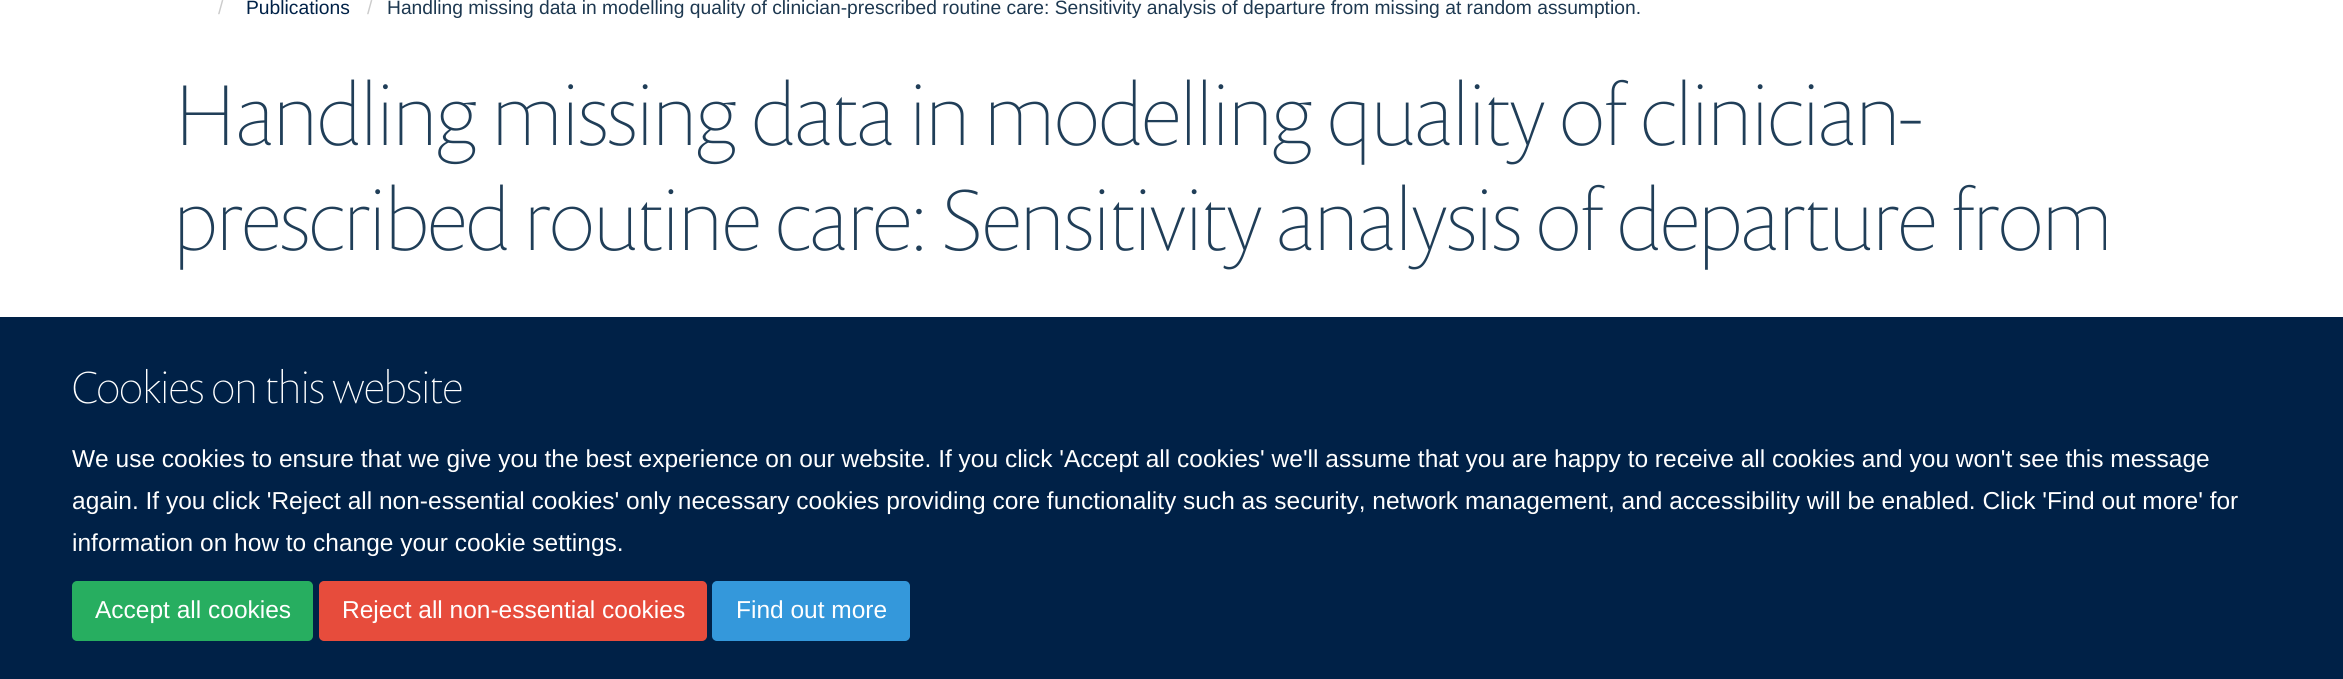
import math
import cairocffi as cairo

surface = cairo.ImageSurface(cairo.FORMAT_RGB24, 2343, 679)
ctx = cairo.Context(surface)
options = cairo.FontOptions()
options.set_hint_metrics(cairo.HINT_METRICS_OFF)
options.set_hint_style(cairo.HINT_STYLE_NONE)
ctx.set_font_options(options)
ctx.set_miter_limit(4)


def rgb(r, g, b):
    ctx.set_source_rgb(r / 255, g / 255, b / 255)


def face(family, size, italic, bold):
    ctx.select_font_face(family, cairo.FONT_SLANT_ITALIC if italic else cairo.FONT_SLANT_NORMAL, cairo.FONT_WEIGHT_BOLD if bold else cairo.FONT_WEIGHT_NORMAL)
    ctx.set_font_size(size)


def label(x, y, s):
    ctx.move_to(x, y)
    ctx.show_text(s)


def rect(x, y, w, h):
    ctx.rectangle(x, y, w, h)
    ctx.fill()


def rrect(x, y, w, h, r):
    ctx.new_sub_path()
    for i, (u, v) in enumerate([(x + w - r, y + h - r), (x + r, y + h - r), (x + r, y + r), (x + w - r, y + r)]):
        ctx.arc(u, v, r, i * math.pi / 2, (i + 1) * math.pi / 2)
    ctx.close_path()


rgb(255, 255, 255)
ctx.paint()
face('Liberation Sans', 19.25, 0, 0)
rgb(204, 204, 204)
label(218, 14, '/')
rgb(0, 33, 71)
label(246, 14, 'Publications')
rgb(204, 204, 204)
label(367, 14, '/')
rgb(29, 56, 80)
label(387, 14, 'Handling missing data in modelling quality of clinician-prescribed routine care: Sensitivity analysis of departure from missing at random assumption.')
face('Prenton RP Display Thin', 87.5, 0, 0)
rgb(32, 62, 88)
label(174, 145, 'Handling missing data in modelling quality of clinician-')
label(174, 250, 'prescribed routine care: Sensitivity analysis of departure from')
rgb(0, 33, 71)
rect(0, 317, 2343, 362)
face('Prenton RP Display Thin', 45.5, 0, 0)
rgb(255, 255, 255)
label(72, 403, 'Cookies on this website')
face('Liberation Sans', 24.5, 0, 0)
label(72, 467, 'We use cookies to ensure that we give you the best experience on our website. If you click \'Accept all cookies\' we\'ll assume that you are happy to receive all cookies and you won\'t see this message')
label(72, 509, 'again. If you click \'Reject all non-essential cookies\' only necessary cookies providing core functionality such as security, network management, and accessibility will be enabled. Click \'Find out more\' for')
label(72, 551, 'information on how to change your cookie settings.')
rgb(39, 174, 96)
rrect(73, 582, 239, 58, 4)
ctx.fill_preserve()
ctx.stroke()
rgb(255, 255, 255)
label(95, 618, 'Accept all cookies')
rgb(231, 76, 60)
rrect(320, 582, 386, 58, 4)
ctx.fill_preserve()
ctx.stroke()
rgb(255, 255, 255)
label(342, 618, 'Reject all non-essential cookies')
rgb(52, 152, 219)
rrect(713, 582, 196, 58, 4)
ctx.fill_preserve()
ctx.stroke()
rgb(255, 255, 255)
label(736, 618, 'Find out more')
surface.write_to_png('render.png')
